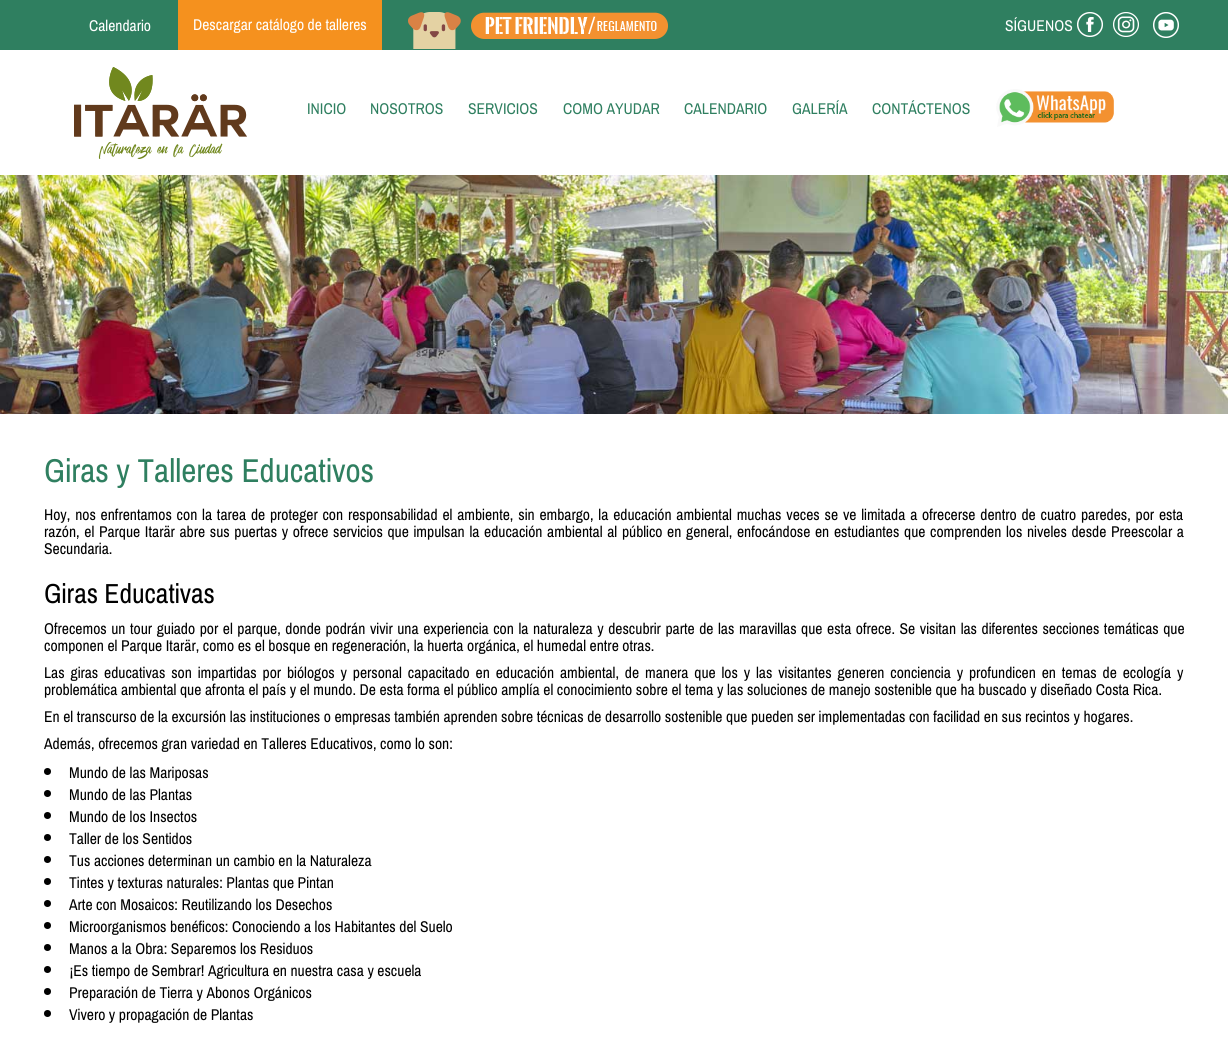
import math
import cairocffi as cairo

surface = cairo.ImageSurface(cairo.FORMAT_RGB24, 1228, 1038)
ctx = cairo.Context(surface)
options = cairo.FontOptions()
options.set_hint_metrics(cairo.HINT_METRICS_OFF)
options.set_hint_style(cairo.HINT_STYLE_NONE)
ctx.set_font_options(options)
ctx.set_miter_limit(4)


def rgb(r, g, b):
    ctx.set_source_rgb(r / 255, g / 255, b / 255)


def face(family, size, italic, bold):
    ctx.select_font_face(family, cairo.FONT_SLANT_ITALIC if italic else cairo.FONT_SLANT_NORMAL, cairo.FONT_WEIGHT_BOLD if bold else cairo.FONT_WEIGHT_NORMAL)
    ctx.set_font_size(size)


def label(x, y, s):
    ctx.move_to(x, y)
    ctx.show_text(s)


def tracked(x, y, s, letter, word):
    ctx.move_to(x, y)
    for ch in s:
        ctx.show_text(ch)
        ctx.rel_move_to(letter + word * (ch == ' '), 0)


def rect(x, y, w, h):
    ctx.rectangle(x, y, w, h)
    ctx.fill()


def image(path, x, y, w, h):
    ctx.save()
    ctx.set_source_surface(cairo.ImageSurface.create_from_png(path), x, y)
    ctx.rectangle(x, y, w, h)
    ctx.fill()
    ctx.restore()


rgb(255, 255, 255)
ctx.paint()
rgb(47, 127, 96)
rect(0, 0, 1228, 50)
face('Pragati Narrow', 17, 0, 0)
rgb(255, 255, 255)
label(89, 31, 'Calendario')
rgb(245, 145, 30)
rect(178, 0, 204, 50)
rgb(255, 255, 255)
label(193, 30, 'Descargar catálogo de talleres')
image('image0.png', 408, 12, 260, 37)
label(1005, 31, 'SÍGUENOS')
image('image1.png', 1077, 12, 26, 25)
image('image2.png', 1113, 12, 26, 25)
image('image3.png', 1153, 12, 26, 26)
image('image4.png', 74, 67, 173, 92)
rgb(47, 127, 96)
label(307, 114, 'INICIO')
label(370, 114, 'NOSOTROS')
label(468, 114, 'SERVICIOS')
label(563, 114, 'COMO AYUDAR')
label(684, 114, 'CALENDARIO')
label(792, 114, 'GALERÍA')
label(872, 114, 'CONTÁCTENOS')
image('image5.png', 996, 89, 118, 38)
image('image6.png', 0, 175, 1228, 239)
face('Pragati Narrow', 36, 0, 0)
label(44, 482, 'Giras y Talleres Educativos')
face('Pragati Narrow', 17, 0, 0)
rgb(0, 0, 0)
tracked(44, 520, 'Hoy, nos enfrentamos con la tarea de proteger con responsabilidad el ambiente, sin embargo, la educación ambiental muchas veces se ve limitada a ofrecerse dentro de cuatro paredes, por esta', 0, 1.25)
tracked(44, 537, 'razón, el Parque Itarär abre sus puertas y ofrece servicios que impulsan la educación ambiental al público en general, enfocándose en estudiantes que comprenden los niveles desde Preescolar a', 0, 1.1)
label(44, 554, 'Secundaria.')
face('Pragati Narrow', 30, 0, 0)
label(44, 603, 'Giras Educativas')
face('Pragati Narrow', 17, 0, 0)
tracked(44, 634, 'Ofrecemos un tour guiado por el parque, donde podrán vivir una experiencia con la naturaleza y descubrir parte de las maravillas que esta ofrece. Se visitan las diferentes secciones temáticas que', 0, 1)
label(44, 651, 'componen el Parque Itarär, como es el bosque en regeneración, la huerta orgánica, el humedal entre otras.')
tracked(44, 678, 'Las giras educativas son impartidas por biólogos y personal capacitado en educación ambiental, de manera que los y las visitantes generen conciencia y profundicen en temas de ecología y', 0, 2.3)
label(44, 695, 'problemática ambiental que afronta el país y el mundo. De esta forma el público amplía el conocimiento sobre el tema y las soluciones de manejo sostenible que ha buscado y diseñado Costa Rica.')
label(44, 722, 'En el transcurso de la excursión las instituciones o empresas también aprenden sobre técnicas de desarrollo sostenible que pueden ser implementadas con facilidad en sus recintos y hogares.')
label(44, 749, 'Además, ofrecemos gran variedad en Talleres Educativos, como lo son:')
ctx.new_path()
ctx.arc(47.5, 771.5, 3.5, 0, 2 * math.pi)
ctx.fill()
label(69, 778, 'Mundo de las Mariposas')
ctx.new_path()
ctx.arc(47.5, 793.5, 3.5, 0, 2 * math.pi)
ctx.fill()
label(69, 800, 'Mundo de las Plantas')
ctx.new_path()
ctx.arc(47.5, 815.5, 3.5, 0, 2 * math.pi)
ctx.fill()
label(69, 822, 'Mundo de los Insectos')
ctx.new_path()
ctx.arc(47.5, 837.5, 3.5, 0, 2 * math.pi)
ctx.fill()
label(69, 844, 'Taller de los Sentidos')
ctx.new_path()
ctx.arc(47.5, 859.5, 3.5, 0, 2 * math.pi)
ctx.fill()
label(69, 866, 'Tus acciones determinan un cambio en la Naturaleza')
ctx.new_path()
ctx.arc(47.5, 881.5, 3.5, 0, 2 * math.pi)
ctx.fill()
label(69, 888, 'Tintes y texturas naturales: Plantas que Pintan')
ctx.new_path()
ctx.arc(47.5, 903.5, 3.5, 0, 2 * math.pi)
ctx.fill()
label(69, 910, 'Arte con Mosaicos: Reutilizando los Desechos')
ctx.new_path()
ctx.arc(47.5, 925.5, 3.5, 0, 2 * math.pi)
ctx.fill()
label(69, 932, 'Microorganismos benéficos: Conociendo a los Habitantes del Suelo')
ctx.new_path()
ctx.arc(47.5, 947.5, 3.5, 0, 2 * math.pi)
ctx.fill()
label(69, 954, 'Manos a la Obra: Separemos los Residuos')
ctx.new_path()
ctx.arc(47.5, 969.5, 3.5, 0, 2 * math.pi)
ctx.fill()
label(69, 976, '¡Es tiempo de Sembrar! Agricultura en nuestra casa y escuela')
ctx.new_path()
ctx.arc(47.5, 991.5, 3.5, 0, 2 * math.pi)
ctx.fill()
label(69, 998, 'Preparación de Tierra y Abonos Orgánicos')
ctx.new_path()
ctx.arc(47.5, 1013.5, 3.5, 0, 2 * math.pi)
ctx.fill()
label(69, 1020, 'Vivero y propagación de Plantas')
surface.write_to_png('render.png')
